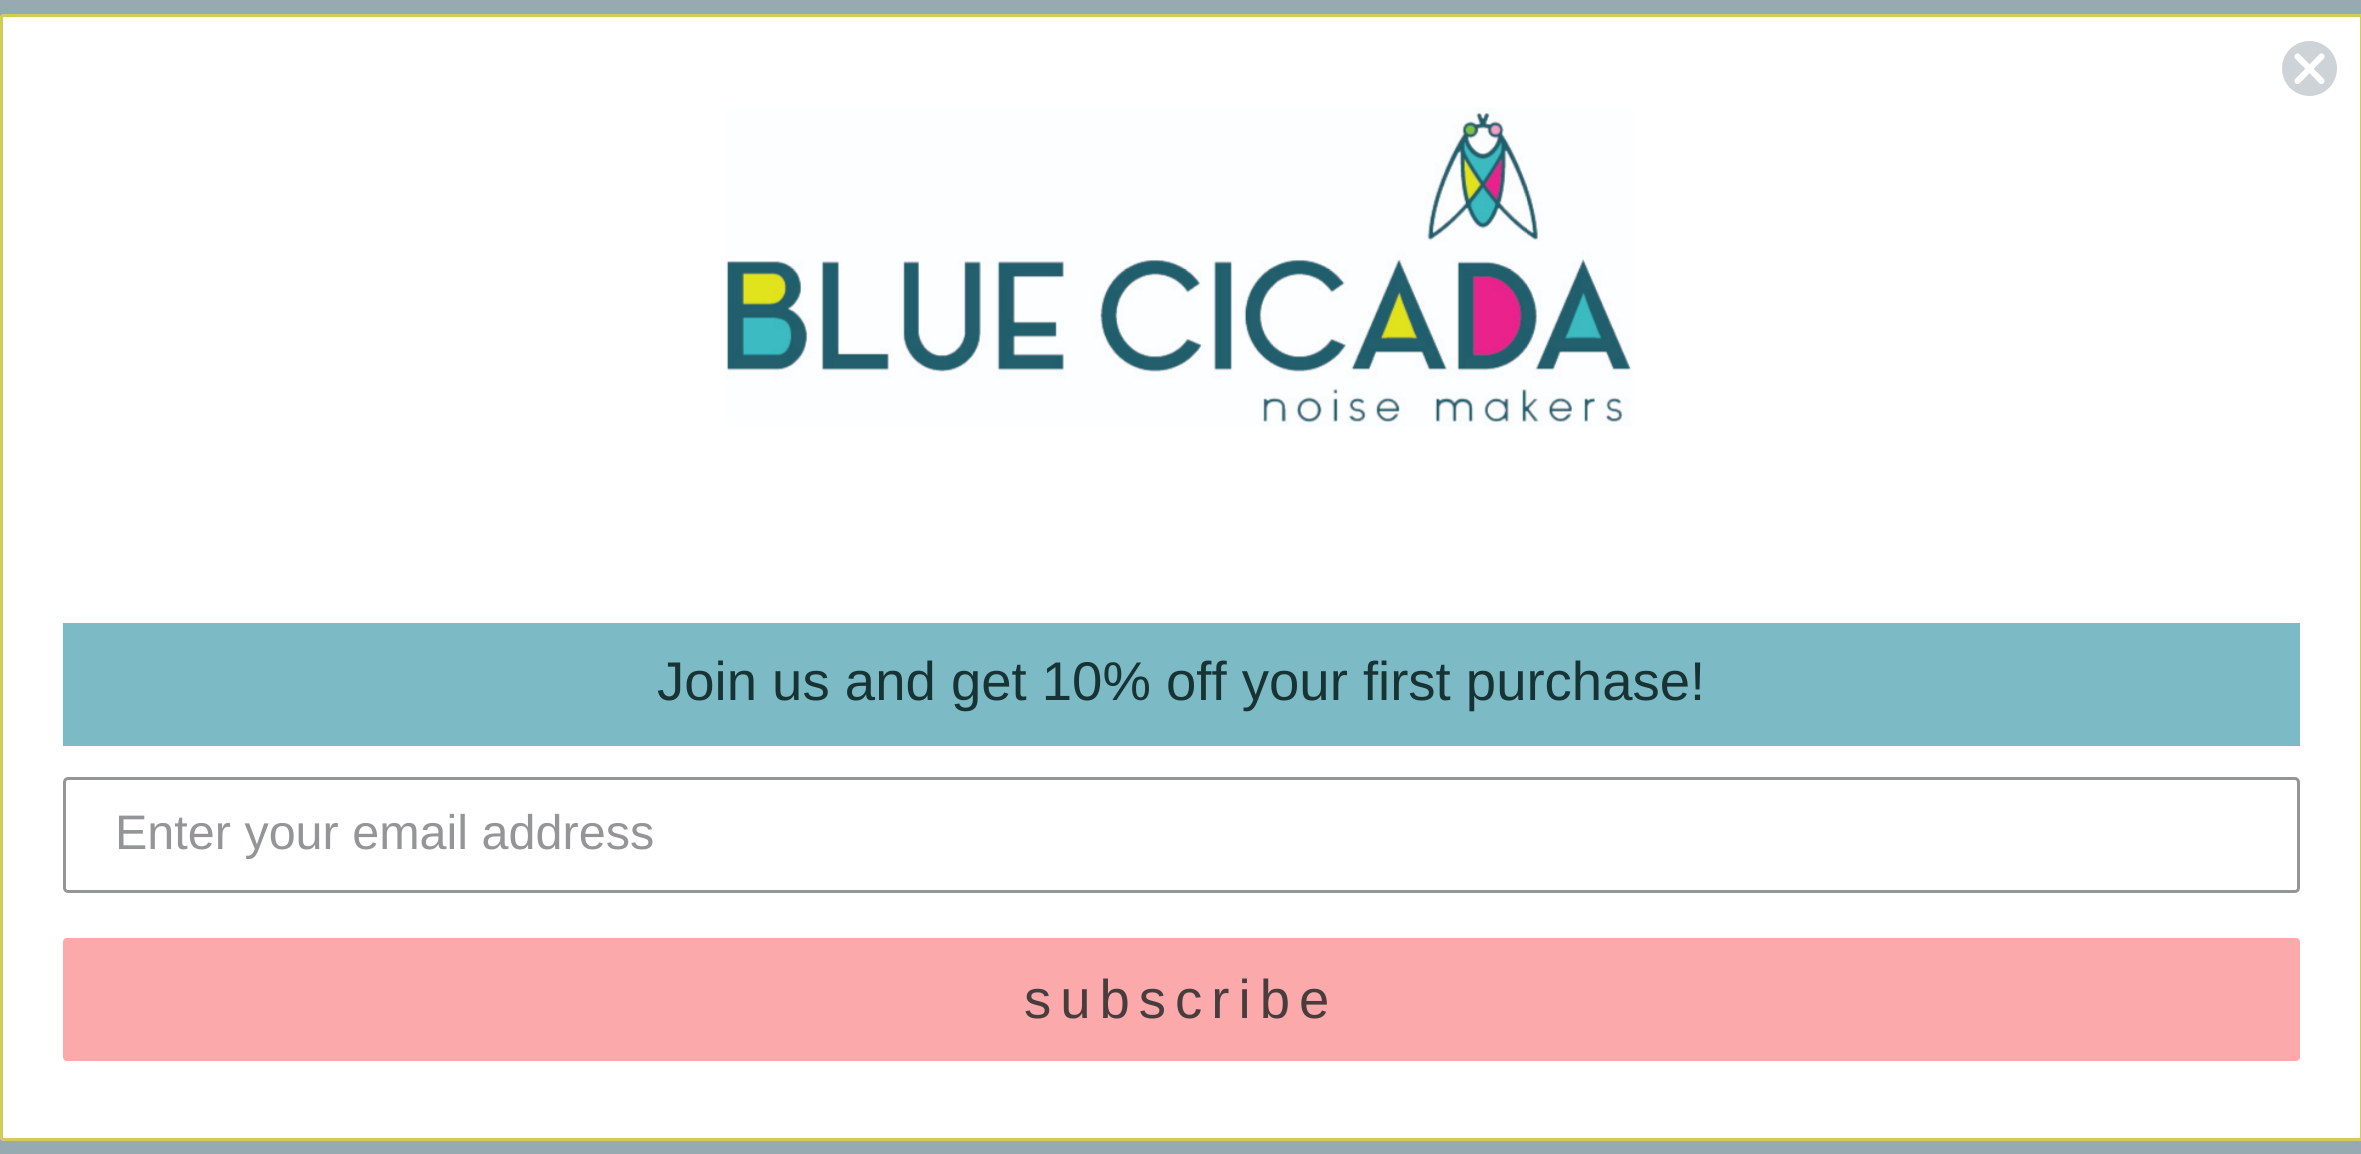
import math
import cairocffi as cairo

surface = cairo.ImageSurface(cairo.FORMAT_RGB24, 2361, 1154)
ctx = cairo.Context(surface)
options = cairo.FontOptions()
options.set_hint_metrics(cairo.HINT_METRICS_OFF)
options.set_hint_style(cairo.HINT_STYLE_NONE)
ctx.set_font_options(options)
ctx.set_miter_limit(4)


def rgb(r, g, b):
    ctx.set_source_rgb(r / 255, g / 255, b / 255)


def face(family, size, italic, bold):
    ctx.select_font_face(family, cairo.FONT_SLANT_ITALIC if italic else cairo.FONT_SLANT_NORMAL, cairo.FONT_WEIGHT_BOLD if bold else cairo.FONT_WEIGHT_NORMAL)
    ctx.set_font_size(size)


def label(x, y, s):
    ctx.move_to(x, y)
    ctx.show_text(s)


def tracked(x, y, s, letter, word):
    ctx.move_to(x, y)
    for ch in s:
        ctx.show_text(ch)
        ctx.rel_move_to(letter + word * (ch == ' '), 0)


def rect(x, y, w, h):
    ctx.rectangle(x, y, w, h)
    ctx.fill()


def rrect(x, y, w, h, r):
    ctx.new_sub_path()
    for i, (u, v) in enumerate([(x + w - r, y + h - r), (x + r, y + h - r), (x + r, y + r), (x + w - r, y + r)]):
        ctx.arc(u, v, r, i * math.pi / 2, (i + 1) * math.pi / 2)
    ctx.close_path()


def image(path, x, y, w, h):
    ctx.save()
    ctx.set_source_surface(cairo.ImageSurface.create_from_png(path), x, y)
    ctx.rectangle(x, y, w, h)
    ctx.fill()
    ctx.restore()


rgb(152, 170, 177)
ctx.paint()
rgb(152, 168, 174)
rect(0, 0, 2361, 1)
rgb(255, 255, 255)
rrect(0, 14, 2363, 1127, 4)
ctx.fill()
image('image0.png', 725, 107, 908, 320)
rrect(1.5, 15.5, 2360, 1124, 2.5)
ctx.set_source_rgba(0.737, 0.722, 0.059, 0.7)
ctx.set_line_width(3)
ctx.stroke()
rgb(206, 211, 216)
ctx.arc(2309.5, 68.5, 29, 0, 2 * math.pi)
ctx.fill_preserve()
rgb(255, 255, 255)
ctx.stroke()
ctx.new_path()
ctx.move_to(2297.5, 56.5)
ctx.line_to(2321.5, 81)
ctx.move_to(2297.5, 81)
ctx.line_to(2321.5, 56.5)
ctx.close_path()
ctx.set_line_width(6.1)
ctx.set_line_cap(cairo.LINE_CAP_ROUND)
ctx.set_line_join(cairo.LINE_JOIN_ROUND)
ctx.stroke()
rgb(124, 186, 198)
rect(63, 623, 2237, 123)
face('Liberation Sans', 54.5, 0, 0)
rgb(24, 51, 51)
label(657, 700, 'Join us and get 10% off your first purchase!')
rrect(64.5, 778.5, 2234, 113, 3.5)
rgb(148, 149, 150)
ctx.set_line_width(3)
ctx.set_line_cap(cairo.LINE_CAP_BUTT)
ctx.set_line_join(cairo.LINE_JOIN_MITER)
ctx.stroke()
face('Liberation Sans', 48.5, 0, 0)
label(115, 849, 'Enter your email address')
rgb(252, 169, 171)
rrect(63, 938, 2237, 123, 4)
ctx.fill()
face('Liberation Sans', 54.5, 0, 0)
rgb(72, 61, 61)
tracked(1024, 1018, 'subscribe', 9, 0)
surface.write_to_png('render.png')
